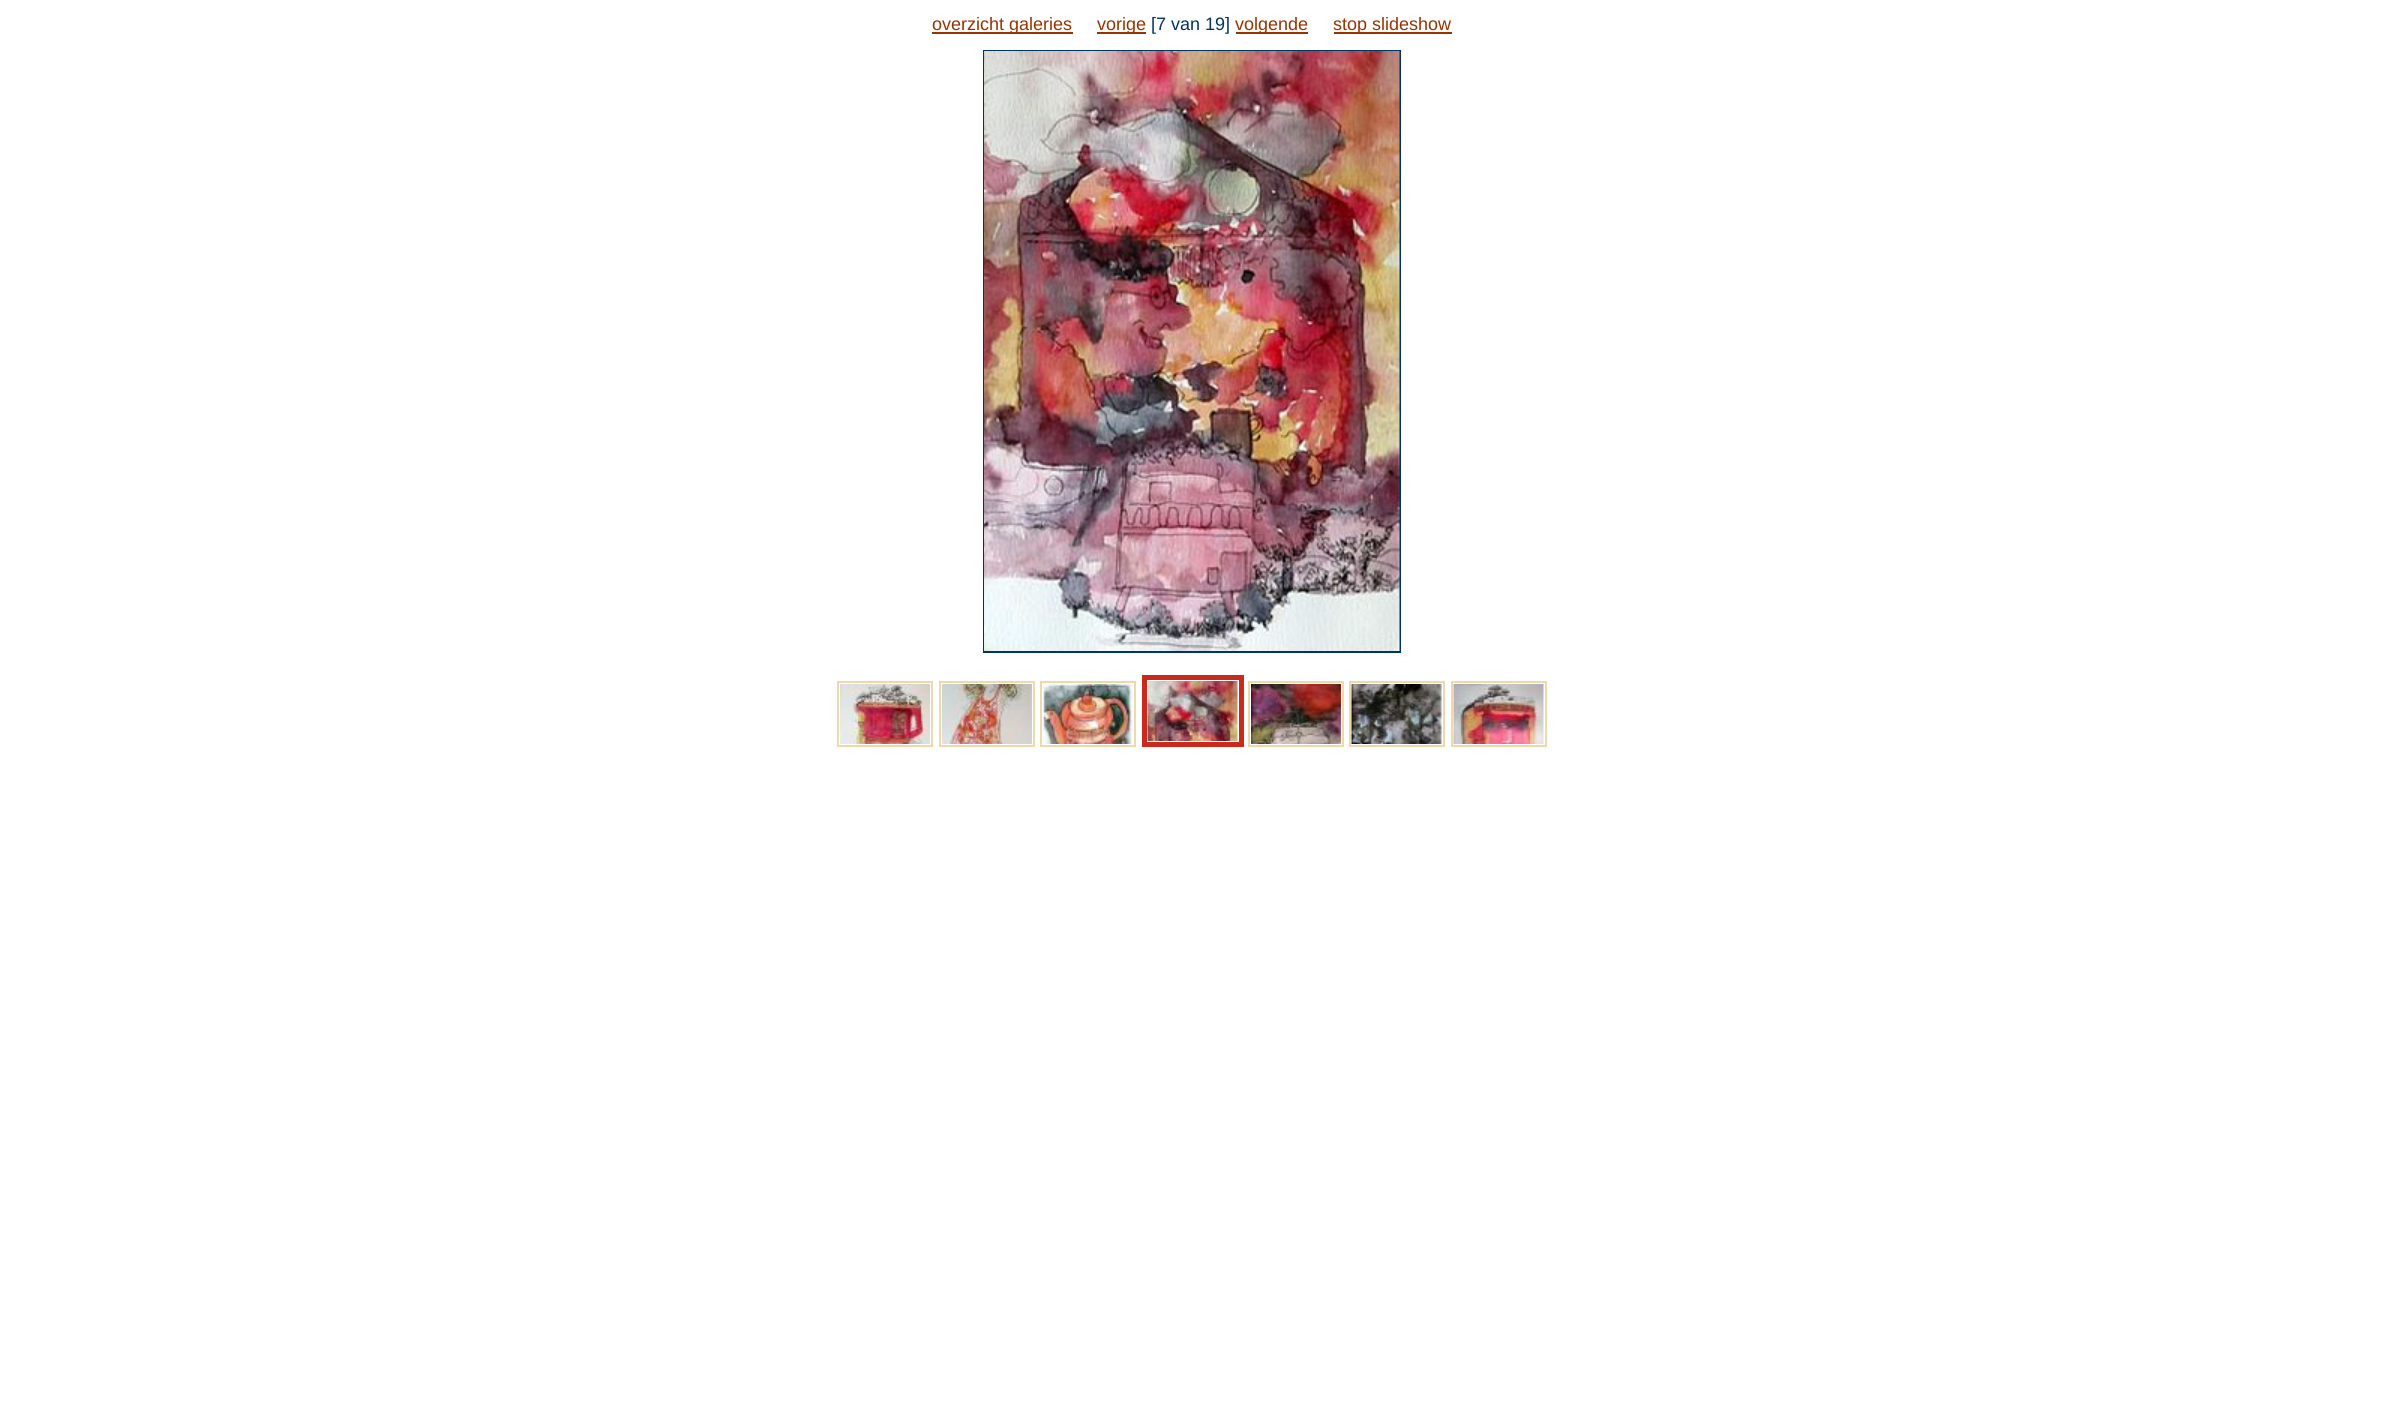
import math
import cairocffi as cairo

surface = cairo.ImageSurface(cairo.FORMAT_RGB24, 2383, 1425)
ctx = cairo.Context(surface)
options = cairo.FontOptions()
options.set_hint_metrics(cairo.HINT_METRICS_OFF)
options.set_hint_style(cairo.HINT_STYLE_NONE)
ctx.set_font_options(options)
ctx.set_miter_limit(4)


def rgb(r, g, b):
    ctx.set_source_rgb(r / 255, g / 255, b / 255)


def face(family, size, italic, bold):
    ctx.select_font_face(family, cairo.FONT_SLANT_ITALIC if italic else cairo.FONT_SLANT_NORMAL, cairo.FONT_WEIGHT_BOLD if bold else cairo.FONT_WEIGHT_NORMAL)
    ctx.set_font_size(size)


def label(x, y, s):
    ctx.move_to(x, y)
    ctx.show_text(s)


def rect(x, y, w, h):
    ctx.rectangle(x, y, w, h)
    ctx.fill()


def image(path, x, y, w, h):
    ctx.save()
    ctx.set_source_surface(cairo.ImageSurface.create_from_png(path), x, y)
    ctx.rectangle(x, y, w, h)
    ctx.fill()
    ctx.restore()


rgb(255, 255, 255)
ctx.paint()
rgb(153, 51, 0)
rect(932, 32, 141, 2)
face('Liberation Sans', 18, 0, 0)
label(932, 30, 'overzicht galeries')
rect(1097, 32, 49, 2)
label(1097, 30, 'vorige')
rgb(0, 51, 102)
label(1151, 30, '[7 van 19]')
rgb(153, 51, 0)
rect(1236, 32, 72, 2)
label(1235, 30, 'volgende')
rect(1334, 32, 118, 2)
label(1333, 30, 'stop slideshow')
ctx.rectangle(984, 51, 416, 601)
rgb(0, 51, 102)
ctx.stroke()
image('image0.png', 984, 51, 416, 600)
ctx.rectangle(838, 682, 94, 64)
rgb(237, 217, 173)
ctx.stroke()
ctx.rectangle(940, 682, 94, 64)
ctx.stroke()
ctx.rectangle(1041, 682, 94, 64)
ctx.stroke()
ctx.rectangle(1144.5, 677.5, 97, 67)
rgb(202, 42, 27)
ctx.set_line_width(5)
ctx.stroke()
image('image1.png', 840, 684, 90, 60)
image('image2.png', 942, 684, 90, 60)
image('image3.png', 1042, 684, 91, 60)
image('image4.png', 1147, 681, 91, 60)
ctx.rectangle(1249, 682, 94, 64)
rgb(237, 217, 173)
ctx.set_line_width(2)
ctx.stroke()
ctx.rectangle(1350, 682, 94, 64)
ctx.stroke()
ctx.rectangle(1452, 682, 94, 64)
ctx.stroke()
image('image5.png', 1251, 684, 90, 60)
image('image6.png', 1351, 684, 91, 60)
image('image7.png', 1453, 684, 91, 60)
surface.write_to_png('render.png')
